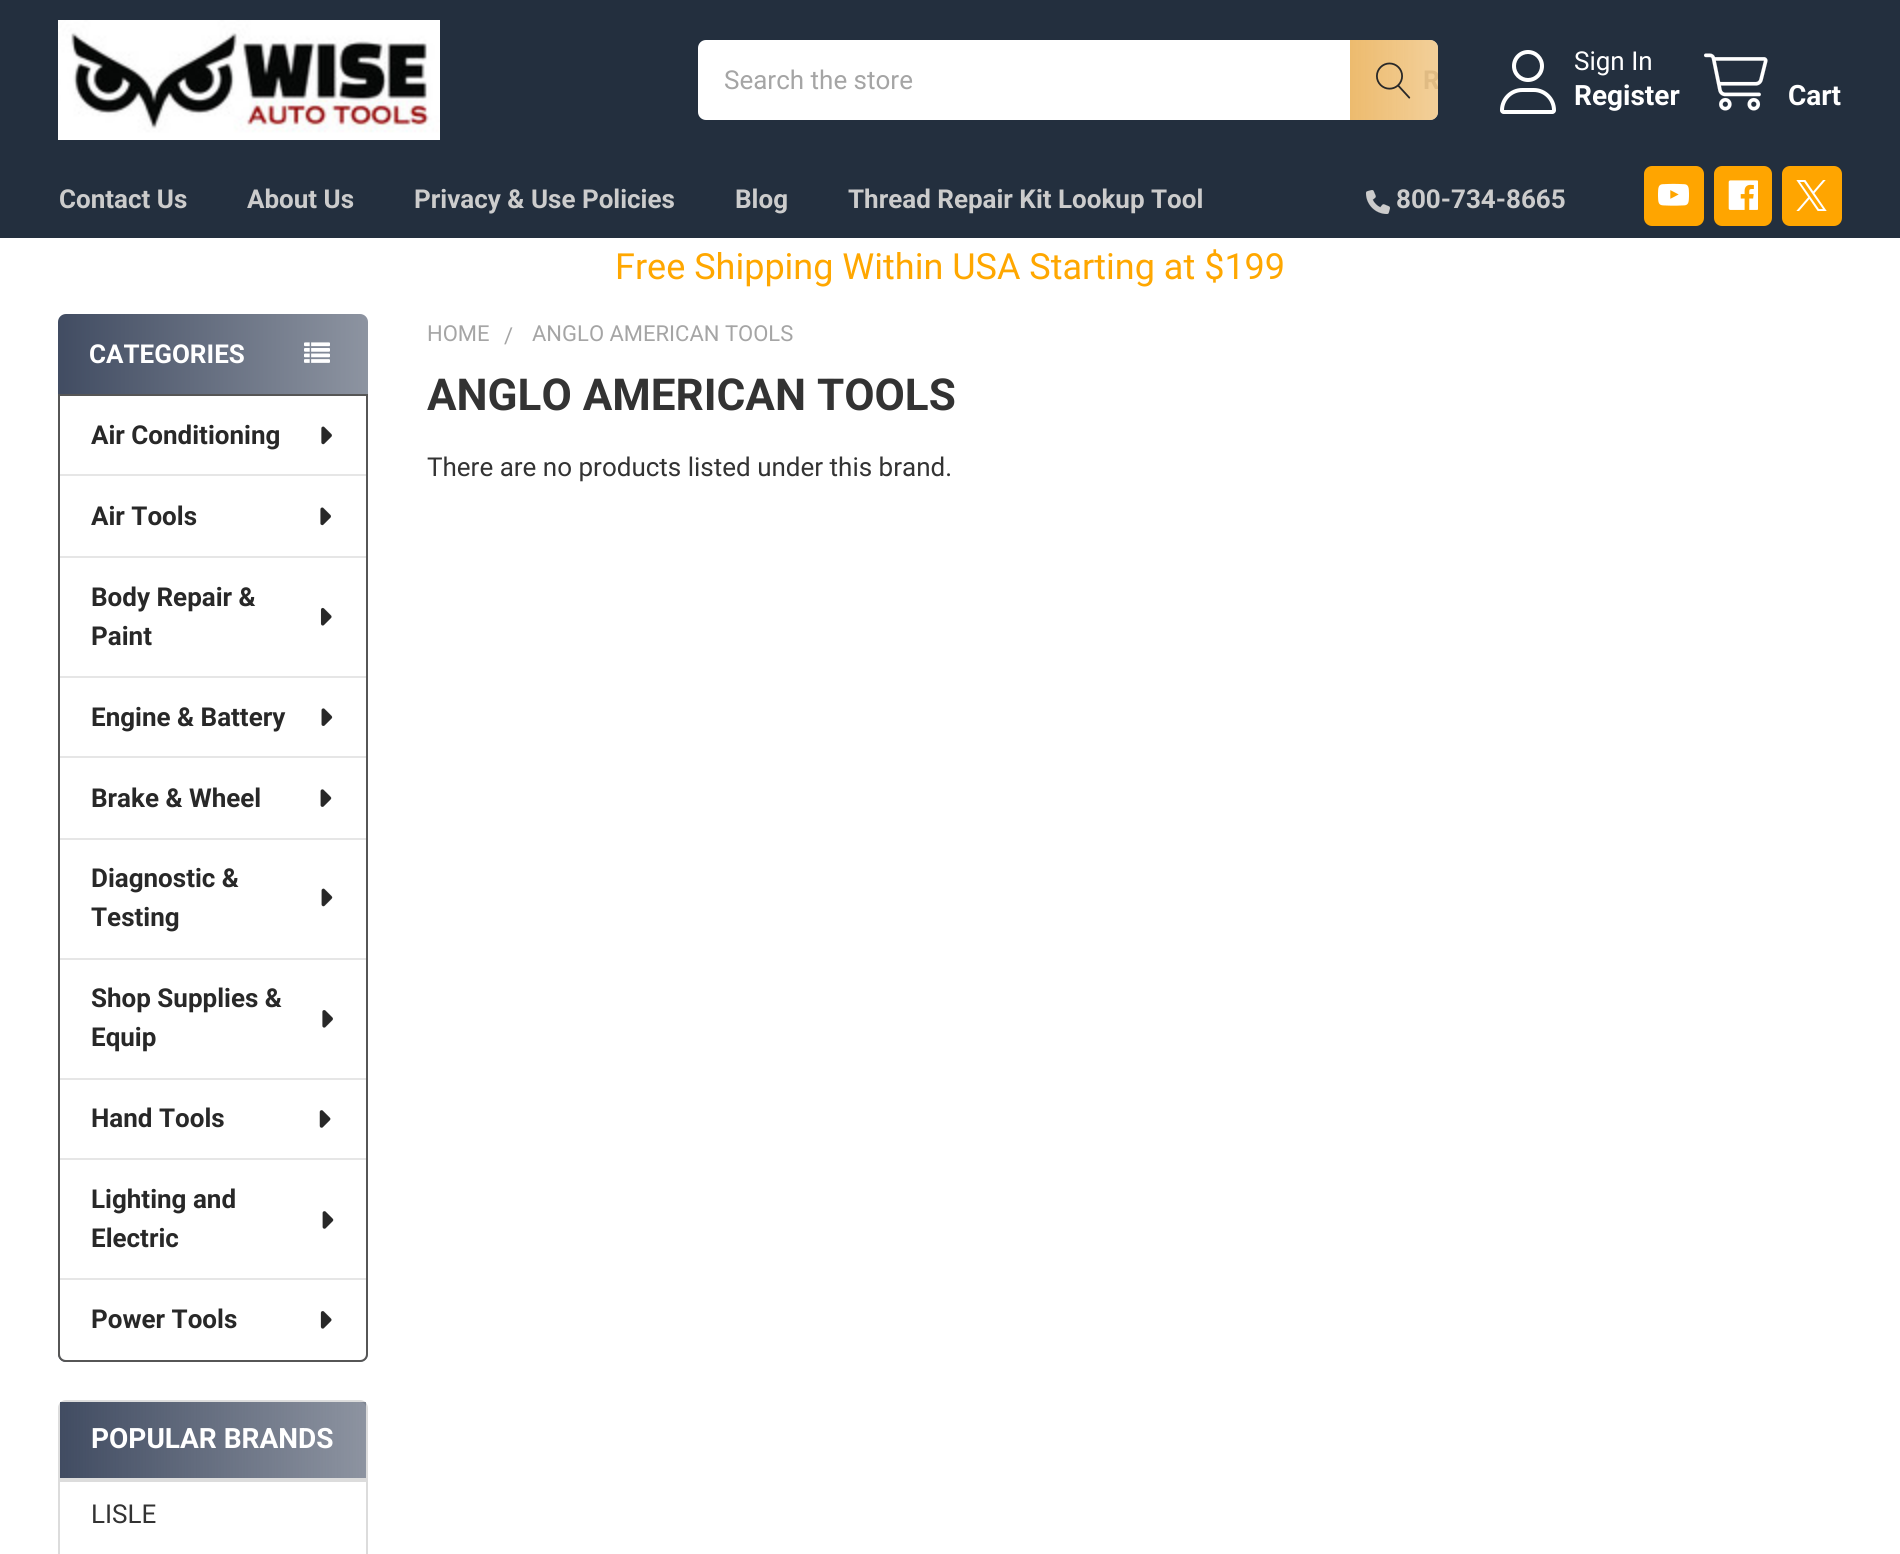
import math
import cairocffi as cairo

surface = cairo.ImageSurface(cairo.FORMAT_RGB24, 1900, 1554)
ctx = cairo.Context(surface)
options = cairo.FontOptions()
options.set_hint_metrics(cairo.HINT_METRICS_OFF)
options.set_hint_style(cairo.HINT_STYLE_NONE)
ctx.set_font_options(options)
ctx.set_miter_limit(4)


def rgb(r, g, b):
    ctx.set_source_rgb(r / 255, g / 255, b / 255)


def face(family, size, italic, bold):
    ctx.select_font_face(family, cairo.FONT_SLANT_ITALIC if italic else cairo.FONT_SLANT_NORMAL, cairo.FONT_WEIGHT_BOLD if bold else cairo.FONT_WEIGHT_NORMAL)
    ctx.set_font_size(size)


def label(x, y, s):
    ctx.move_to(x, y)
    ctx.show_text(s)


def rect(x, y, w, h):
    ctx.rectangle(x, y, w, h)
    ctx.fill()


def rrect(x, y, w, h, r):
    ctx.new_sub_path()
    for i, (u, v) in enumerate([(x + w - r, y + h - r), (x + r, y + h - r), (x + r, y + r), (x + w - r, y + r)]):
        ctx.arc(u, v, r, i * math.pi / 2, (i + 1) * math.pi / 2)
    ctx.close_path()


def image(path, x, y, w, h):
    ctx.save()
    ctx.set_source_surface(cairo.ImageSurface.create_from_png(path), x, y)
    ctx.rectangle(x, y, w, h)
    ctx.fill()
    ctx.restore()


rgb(255, 255, 255)
ctx.paint()
rgb(35, 47, 62)
rect(0, 0, 1900, 238)
image('image0.png', 58, 20, 382, 120)
rgb(255, 255, 255)
rrect(698, 40, 740, 80, 8)
ctx.fill()
gradient = cairo.LinearGradient(1350, 80, 1438, 80)
gradient.add_color_stop_rgba(0, 0.929, 0.733, 0.431, 1)
gradient.add_color_stop_rgba(1, 0.929, 0.733, 0.431, 0.7)
ctx.set_source(gradient)
ctx.new_path()
ctx.move_to(1350, 40)
ctx.line_to(1430, 40)
ctx.curve_to(1434.5, 40, 1438, 43.5, 1438, 48)
ctx.line_to(1438, 112)
ctx.curve_to(1438, 116.5, 1434.5, 120, 1430, 120)
ctx.line_to(1350, 120)
ctx.close_path()
ctx.fill()
image('image1.png', 1376, 62, 35, 37)
face('Roboto', 26, 0, 0)
rgb(165, 165, 165)
label(724, 89, 'Search the store')
ctx.save()
rrect(1350, 40, 88, 80, 8)
ctx.clip()
face('Roboto', 26, 0, 1)
rgb(224, 187, 131)
label(1423, 89, 'R')
ctx.restore()
image('image2.png', 1500, 50, 56, 64)
rgb(255, 255, 255)
label(1574, 70, 'Sign In')
face('Roboto', 28, 0, 1)
label(1574, 105, 'Register')
image('image3.png', 1704, 53, 64, 58)
label(1788, 105, 'Cart')
face('Roboto', 26, 0, 1)
rgb(204, 204, 204)
label(59, 208, 'Contact Us')
label(247, 208, 'About Us')
label(414, 208, 'Privacy & Use Policies')
label(735, 208, 'Blog')
label(848, 208, 'Thread Repair Kit Lookup Tool')
image('image4.png', 1366, 190, 24, 24)
label(1396, 208, '800-734-8665')
rgb(255, 165, 0)
rrect(1644, 166, 60, 60, 8)
ctx.fill()
image('image5.png', 1658, 183, 31, 23)
rrect(1714, 166, 58, 60, 8)
ctx.fill()
image('image6.png', 1728, 180, 30, 30)
rrect(1782, 166, 60, 60, 8)
ctx.fill()
image('image7.png', 1796, 180, 31, 31)
face('Roboto', 36, 0, 0)
rgb(255, 167, 0)
label(615, 279, 'Free Shipping Within USA Starting at $199')
gradient = cairo.LinearGradient(58, 838, 368, 838)
gradient.add_color_stop_rgba(0, 0.255, 0.298, 0.384, 1)
gradient.add_color_stop_rgba(1, 0.553, 0.58, 0.631, 1)
ctx.set_source(gradient)
rrect(58, 314, 310, 1048, 8)
ctx.fill()
face('Roboto', 26, 0, 1)
rgb(255, 255, 255)
label(89, 363, 'CATEGORIES')
image('image8.png', 304, 342, 26, 21)
ctx.new_path()
ctx.move_to(59, 395)
ctx.line_to(367, 395)
ctx.line_to(367, 1354)
ctx.curve_to(367, 1358, 364, 1361, 360, 1361)
ctx.line_to(66, 1361)
ctx.curve_to(62, 1361, 59, 1358, 59, 1354)
ctx.close_path()
ctx.fill_preserve()
rgb(86, 86, 86)
ctx.stroke()
rgb(40, 40, 40)
label(91, 444, 'Air Conditioning')
image('image9.png', 321, 426, 11, 19)
rgb(230, 230, 230)
rect(60, 474, 306, 2)
rgb(40, 40, 40)
label(91, 525, 'Air Tools')
image('image10.png', 320, 507, 11, 19)
rgb(230, 230, 230)
rect(60, 556, 306, 2)
rgb(40, 40, 40)
label(91, 606, 'Body Repair &')
image('image11.png', 320, 607, 12, 19)
label(91, 645, 'Paint')
rgb(230, 230, 230)
rect(60, 676, 306, 2)
rgb(40, 40, 40)
label(91, 726, 'Engine & Battery')
image('image12.png', 321, 708, 12, 18)
rgb(230, 230, 230)
rect(60, 756, 306, 2)
rgb(40, 40, 40)
label(91, 807, 'Brake & Wheel')
image('image13.png', 320, 789, 12, 18)
rgb(230, 230, 230)
rect(60, 838, 306, 2)
rgb(40, 40, 40)
label(91, 887, 'Diagnostic &')
image('image14.png', 321, 888, 12, 19)
label(91, 926, 'Testing')
rgb(230, 230, 230)
rect(60, 958, 306, 2)
rgb(40, 40, 40)
label(91, 1007, 'Shop Supplies &')
image('image15.png', 322, 1010, 11, 18)
label(91, 1046, 'Equip')
rgb(230, 230, 230)
rect(60, 1078, 306, 2)
rgb(40, 40, 40)
label(91, 1127, 'Hand Tools')
image('image16.png', 319, 1110, 12, 18)
rgb(230, 230, 230)
rect(60, 1158, 306, 2)
rgb(40, 40, 40)
label(91, 1208, 'Lighting and')
image('image17.png', 322, 1211, 12, 18)
label(91, 1247, 'Electric')
rgb(230, 230, 230)
rect(60, 1278, 306, 2)
rgb(40, 40, 40)
label(91, 1328, 'Power Tools')
image('image18.png', 320, 1311, 12, 18)
rrect(59, 1401, 308, 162, 7)
rgb(220, 220, 220)
ctx.stroke()
gradient = cairo.LinearGradient(60, 1440, 366, 1440)
gradient.add_color_stop_rgba(0, 0.255, 0.298, 0.384, 1)
gradient.add_color_stop_rgba(1, 0.255, 0.298, 0.384, 0.6)
ctx.set_source(gradient)
rect(60, 1402, 306, 76)
face('Roboto', 28, 0, 1)
rgb(255, 255, 255)
label(91, 1448, 'POPULAR BRANDS')
rgb(220, 220, 220)
rect(60, 1478, 306, 4)
face('Roboto', 26, 0, 0)
rgb(51, 51, 51)
label(91, 1523, 'LISLE')
face('Roboto', 22, 0, 0)
rgb(165, 165, 165)
label(427, 341, 'HOME')
label(504, 343, '/')
label(532, 341, 'ANGLO AMERICAN TOOLS')
face('Roboto', 44, 0, 1)
rgb(51, 51, 51)
label(427, 410, 'ANGLO AMERICAN TOOLS')
face('Roboto', 26, 0, 0)
label(427, 476, 'There are no products listed under this brand.')
surface.write_to_png('render.png')
